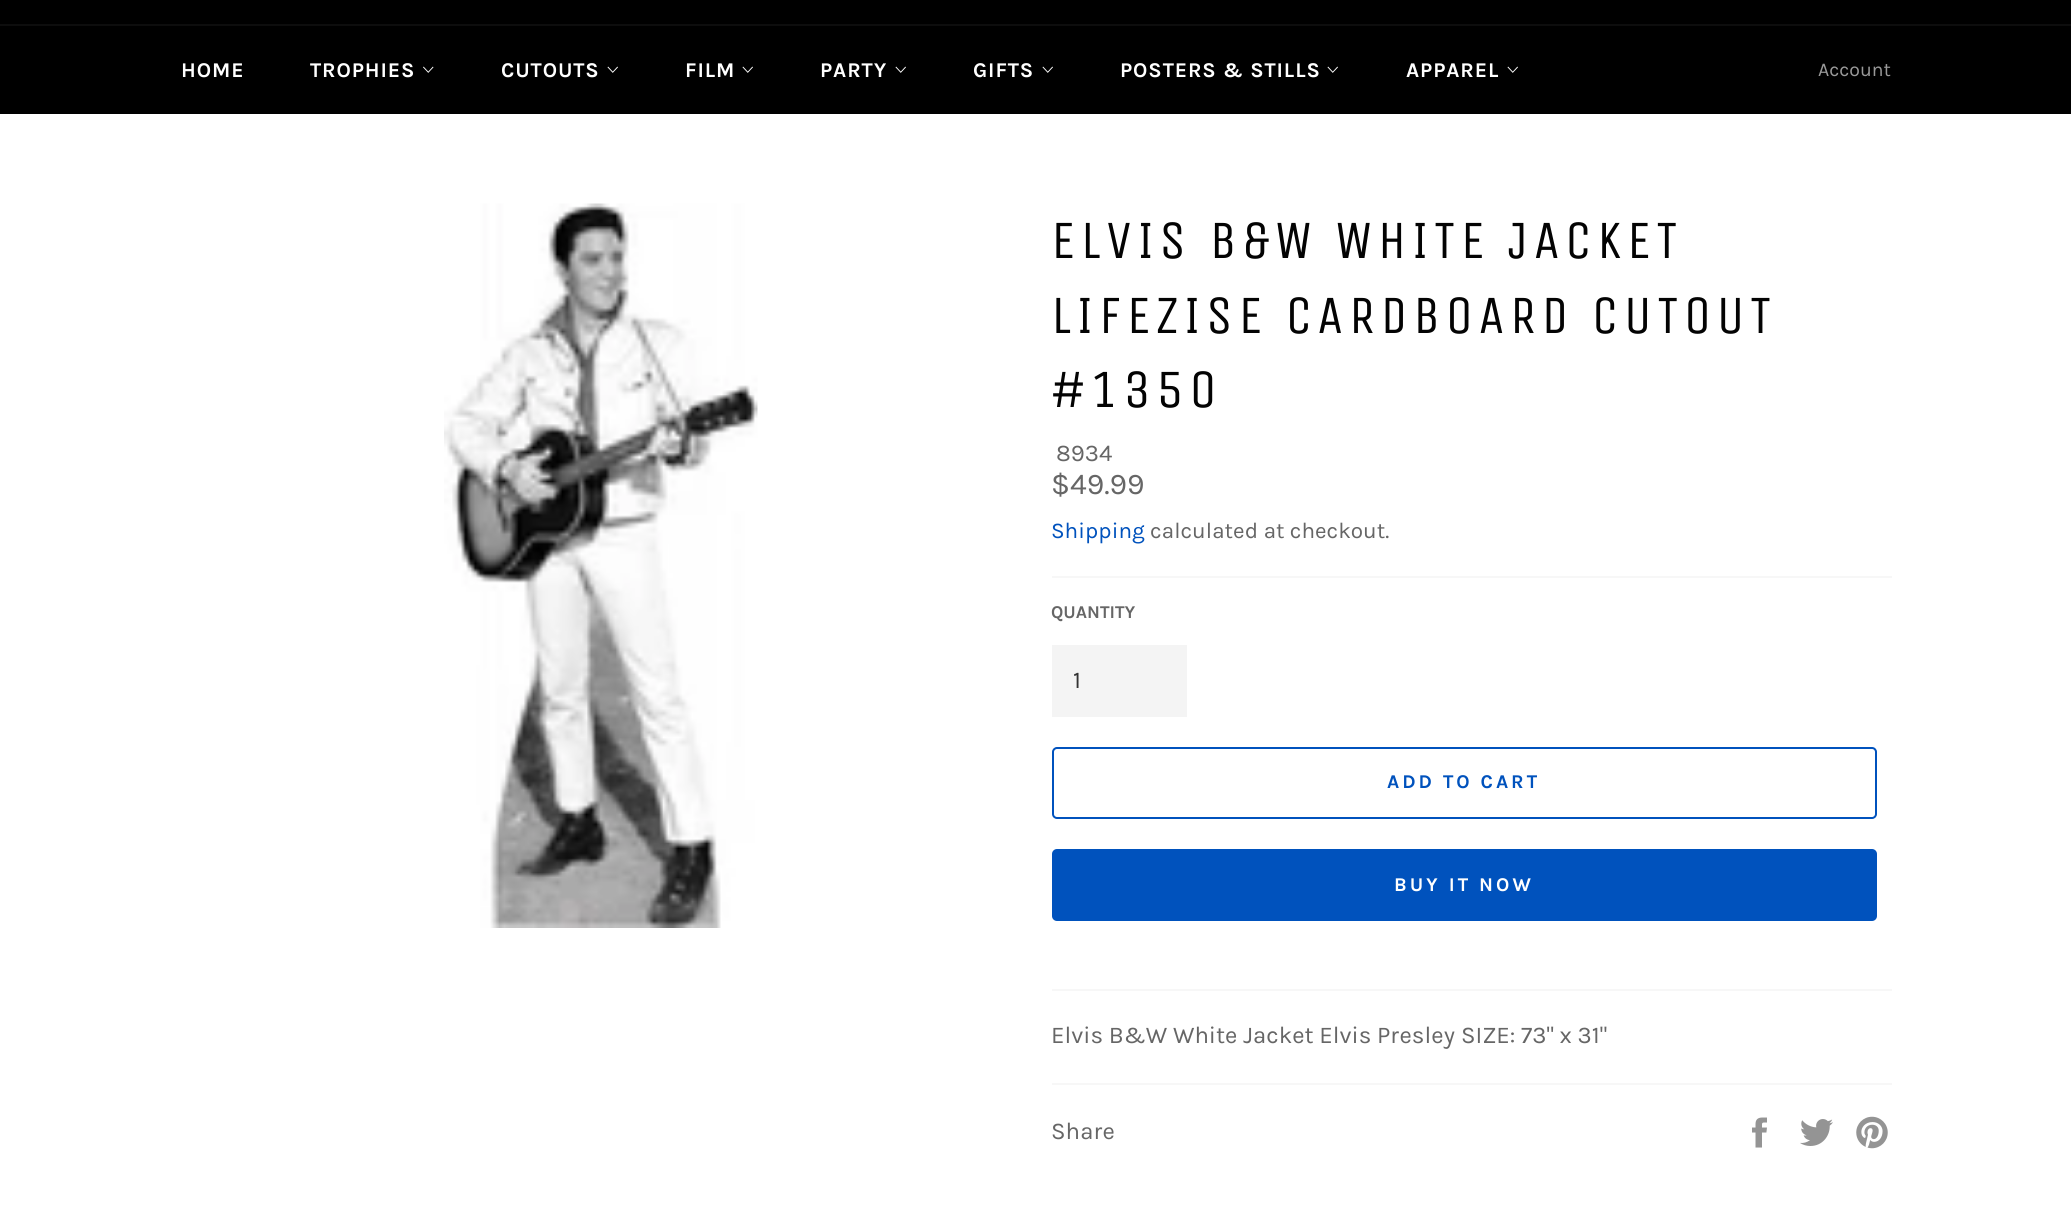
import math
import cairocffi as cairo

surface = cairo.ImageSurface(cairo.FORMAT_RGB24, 2071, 1219)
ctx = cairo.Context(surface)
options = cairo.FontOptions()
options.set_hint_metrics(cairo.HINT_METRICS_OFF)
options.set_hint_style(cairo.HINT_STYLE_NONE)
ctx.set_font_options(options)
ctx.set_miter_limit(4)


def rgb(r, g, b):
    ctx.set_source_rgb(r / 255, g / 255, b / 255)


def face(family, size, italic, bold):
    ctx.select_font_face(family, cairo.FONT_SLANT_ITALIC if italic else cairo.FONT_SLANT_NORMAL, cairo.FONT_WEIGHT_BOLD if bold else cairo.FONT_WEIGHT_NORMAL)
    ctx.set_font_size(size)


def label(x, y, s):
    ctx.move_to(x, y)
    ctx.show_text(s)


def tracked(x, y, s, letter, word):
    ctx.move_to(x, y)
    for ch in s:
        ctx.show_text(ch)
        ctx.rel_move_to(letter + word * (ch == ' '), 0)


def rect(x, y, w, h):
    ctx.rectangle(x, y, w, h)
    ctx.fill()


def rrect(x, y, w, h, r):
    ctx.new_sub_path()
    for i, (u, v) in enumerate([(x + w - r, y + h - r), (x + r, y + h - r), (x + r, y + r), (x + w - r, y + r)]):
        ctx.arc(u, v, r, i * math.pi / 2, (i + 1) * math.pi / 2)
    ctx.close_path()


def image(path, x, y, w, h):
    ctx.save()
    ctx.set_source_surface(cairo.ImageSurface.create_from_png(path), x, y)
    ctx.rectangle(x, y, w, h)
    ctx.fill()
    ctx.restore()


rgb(0, 0, 0)
ctx.paint()
rgb(13, 13, 13)
rect(0, 24, 2071, 2)
face('Karla', 21, 0, 1)
rgb(255, 255, 255)
tracked(181, 77, 'HOME', 0.9, 0)
tracked(310, 77, 'TROPHIES', 0.9, 0)
image('image0.png', 423, 66, 11, 7)
tracked(501, 77, 'CUTOUTS', 0.9, 0)
image('image1.png', 607, 66, 11, 7)
tracked(685, 77, 'FILM', 0.9, 0)
image('image1.png', 742, 66, 11, 7)
tracked(820, 77, 'PARTY', 0.9, 0)
image('image1.png', 895, 66, 11, 7)
tracked(973, 77, 'GIFTS', 0.9, 0)
image('image1.png', 1042, 66, 11, 7)
tracked(1120, 77, 'POSTERS & STILLS', 0.9, 0)
image('image1.png', 1327, 66, 11, 7)
tracked(1406, 77, 'APPAREL', 0.9, 0)
image('image1.png', 1507, 66, 11, 7)
face('Karla', 19.5, 0, 0)
rgb(153, 153, 153)
label(1818, 76, 'Account')
rgb(255, 255, 255)
rect(0, 114, 2071, 1105)
image('image2.png', 444, 203, 314, 725)
face('Unica One', 54, 0, 0)
rgb(3, 3, 3)
tracked(1051, 258, 'ELVIS B&W WHITE JACKET', 5.4, 0)
tracked(1051, 333, 'LIFEZISE CARDBOARD CUTOUT', 5.4, 0)
tracked(1051, 407, '#1350', 5.4, 0)
face('Karla', 24, 0, 0)
rgb(102, 102, 102)
label(1056, 461, '8934')
face('Karla', 30, 0, 0)
label(1051, 494, '$49.99')
face('Karla', 22.5, 0, 0)
rgb(0, 82, 189)
label(1051, 538, 'Shipping')
rgb(102, 102, 102)
label(1150, 538, 'calculated at checkout.')
rgb(247, 247, 247)
rect(1052, 576, 840, 2)
face('Karla', 18, 0, 1)
rgb(102, 102, 102)
label(1051, 618, 'QUANTITY')
rgb(244, 244, 244)
rect(1052, 645, 135, 72)
face('Karla', 24, 0, 0)
rgb(51, 51, 51)
label(1073, 688, '1')
rrect(1053, 748, 823, 70, 4)
rgb(0, 82, 189)
ctx.stroke()
face('Karla', 19.5, 0, 1)
tracked(1387, 788, 'ADD TO CART', 3, 0)
rrect(1052, 849, 825, 72, 5)
ctx.fill()
rgb(255, 255, 255)
tracked(1394, 891, 'BUY IT NOW', 3, 0)
rgb(247, 247, 247)
rect(1052, 989, 840, 2)
face('Karla', 24, 0, 0)
rgb(102, 102, 102)
label(1051, 1043, 'Elvis B&W White Jacket Elvis Presley SIZE: 73" x 31"')
rgb(247, 247, 247)
rect(1052, 1083, 840, 2)
rgb(102, 102, 102)
label(1051, 1139, 'Share')
image('image3.png', 1752, 1117, 15, 31)
image('image4.png', 1800, 1119, 33, 27)
image('image5.png', 1856, 1116, 32, 33)
surface.write_to_png('render.png')
